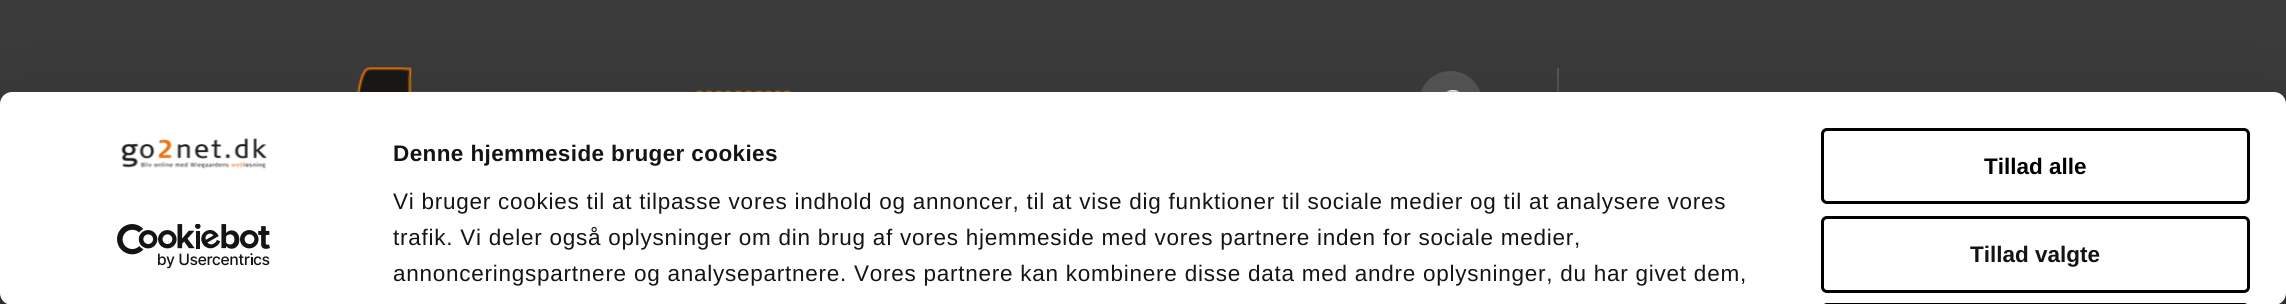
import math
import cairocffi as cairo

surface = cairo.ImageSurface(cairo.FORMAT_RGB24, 2286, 304)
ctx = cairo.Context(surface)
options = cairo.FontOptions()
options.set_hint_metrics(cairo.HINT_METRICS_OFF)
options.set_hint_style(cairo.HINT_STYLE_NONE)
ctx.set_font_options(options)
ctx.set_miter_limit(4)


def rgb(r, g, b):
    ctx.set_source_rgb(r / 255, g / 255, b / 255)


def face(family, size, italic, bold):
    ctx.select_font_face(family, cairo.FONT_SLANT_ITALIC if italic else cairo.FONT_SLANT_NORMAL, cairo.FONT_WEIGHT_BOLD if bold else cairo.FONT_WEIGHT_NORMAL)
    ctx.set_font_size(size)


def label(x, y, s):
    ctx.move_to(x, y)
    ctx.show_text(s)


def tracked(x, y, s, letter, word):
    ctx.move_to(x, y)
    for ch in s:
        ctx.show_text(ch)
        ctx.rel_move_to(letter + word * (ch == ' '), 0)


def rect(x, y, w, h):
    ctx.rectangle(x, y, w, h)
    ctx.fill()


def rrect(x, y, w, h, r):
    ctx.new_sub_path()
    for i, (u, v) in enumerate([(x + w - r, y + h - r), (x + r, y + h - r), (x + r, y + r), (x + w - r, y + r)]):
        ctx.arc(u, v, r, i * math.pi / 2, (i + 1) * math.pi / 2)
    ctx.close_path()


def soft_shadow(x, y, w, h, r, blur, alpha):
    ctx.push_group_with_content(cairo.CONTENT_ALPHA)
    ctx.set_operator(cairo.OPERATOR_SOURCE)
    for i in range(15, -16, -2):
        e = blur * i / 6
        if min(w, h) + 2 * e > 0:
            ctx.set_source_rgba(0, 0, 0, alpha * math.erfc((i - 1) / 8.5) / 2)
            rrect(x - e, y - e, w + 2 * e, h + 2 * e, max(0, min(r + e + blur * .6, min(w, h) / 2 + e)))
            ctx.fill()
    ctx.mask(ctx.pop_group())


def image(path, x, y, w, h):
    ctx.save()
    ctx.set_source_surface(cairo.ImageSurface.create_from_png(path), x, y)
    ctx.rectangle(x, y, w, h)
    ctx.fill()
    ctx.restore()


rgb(59, 59, 59)
ctx.paint()
image('image0.png', 356, 67, 436, 25)
rgb(85, 85, 85)
ctx.arc(1450.5, 102.5, 31.5, 0, 2 * math.pi)
ctx.fill()
image('image1.png', 1445, 90, 15, 2)
rect(1557, 68, 2, 24)
rgb(54, 54, 54)
rect(0, 293, 2286, 11)
rgb(0, 0, 0)
soft_shadow(0, 137, 2286, 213, 12, 52.5, 0.3)
rgb(255, 255, 255)
rrect(0, 92, 2286, 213, 12)
ctx.fill()
image('image2.png', 121, 138, 147, 31)
image('image3.png', 117, 224, 153, 45)
face('Liberation Sans', 22.5, 0, 1)
rgb(20, 20, 20)
tracked(393, 161, 'Denne hjemmeside bruger cookies', 0.4, 0)
face('Liberation Sans', 22.5, 0, 0)
tracked(393, 209, 'Vi bruger cookies til at tilpasse vores indhold og annoncer, til at vise dig funktioner til sociale medier og til at analysere vores', 0.75, 0)
tracked(393, 245, 'trafik. Vi deler også oplysninger om din brug af vores hjemmeside med vores partnere inden for sociale medier,', 0.75, 0)
tracked(393, 281, 'annonceringspartnere og analysepartnere. Vores partnere kan kombinere disse data med andre oplysninger, du har givet dem,', 0.75, 0)
rrect(1822.5, 129.5, 426, 73, 4.5)
rgb(0, 0, 0)
ctx.set_line_width(3)
ctx.stroke()
face('Liberation Sans', 22.5, 0, 1)
label(1984, 174, 'Tillad alle')
rrect(1822.5, 217.5, 426, 74, 4.5)
ctx.stroke()
rgb(20, 20, 20)
label(1970, 262, 'Tillad valgte')
rgb(0, 0, 0)
ctx.new_path()
ctx.move_to(1827, 303)
ctx.line_to(2244, 303)
ctx.curve_to(2246, 303, 2247, 304, 2248, 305)
ctx.line_to(1823, 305)
ctx.curve_to(1824, 304, 1825, 303, 1827, 303)
ctx.close_path()
ctx.fill()
surface.write_to_png('render.png')
